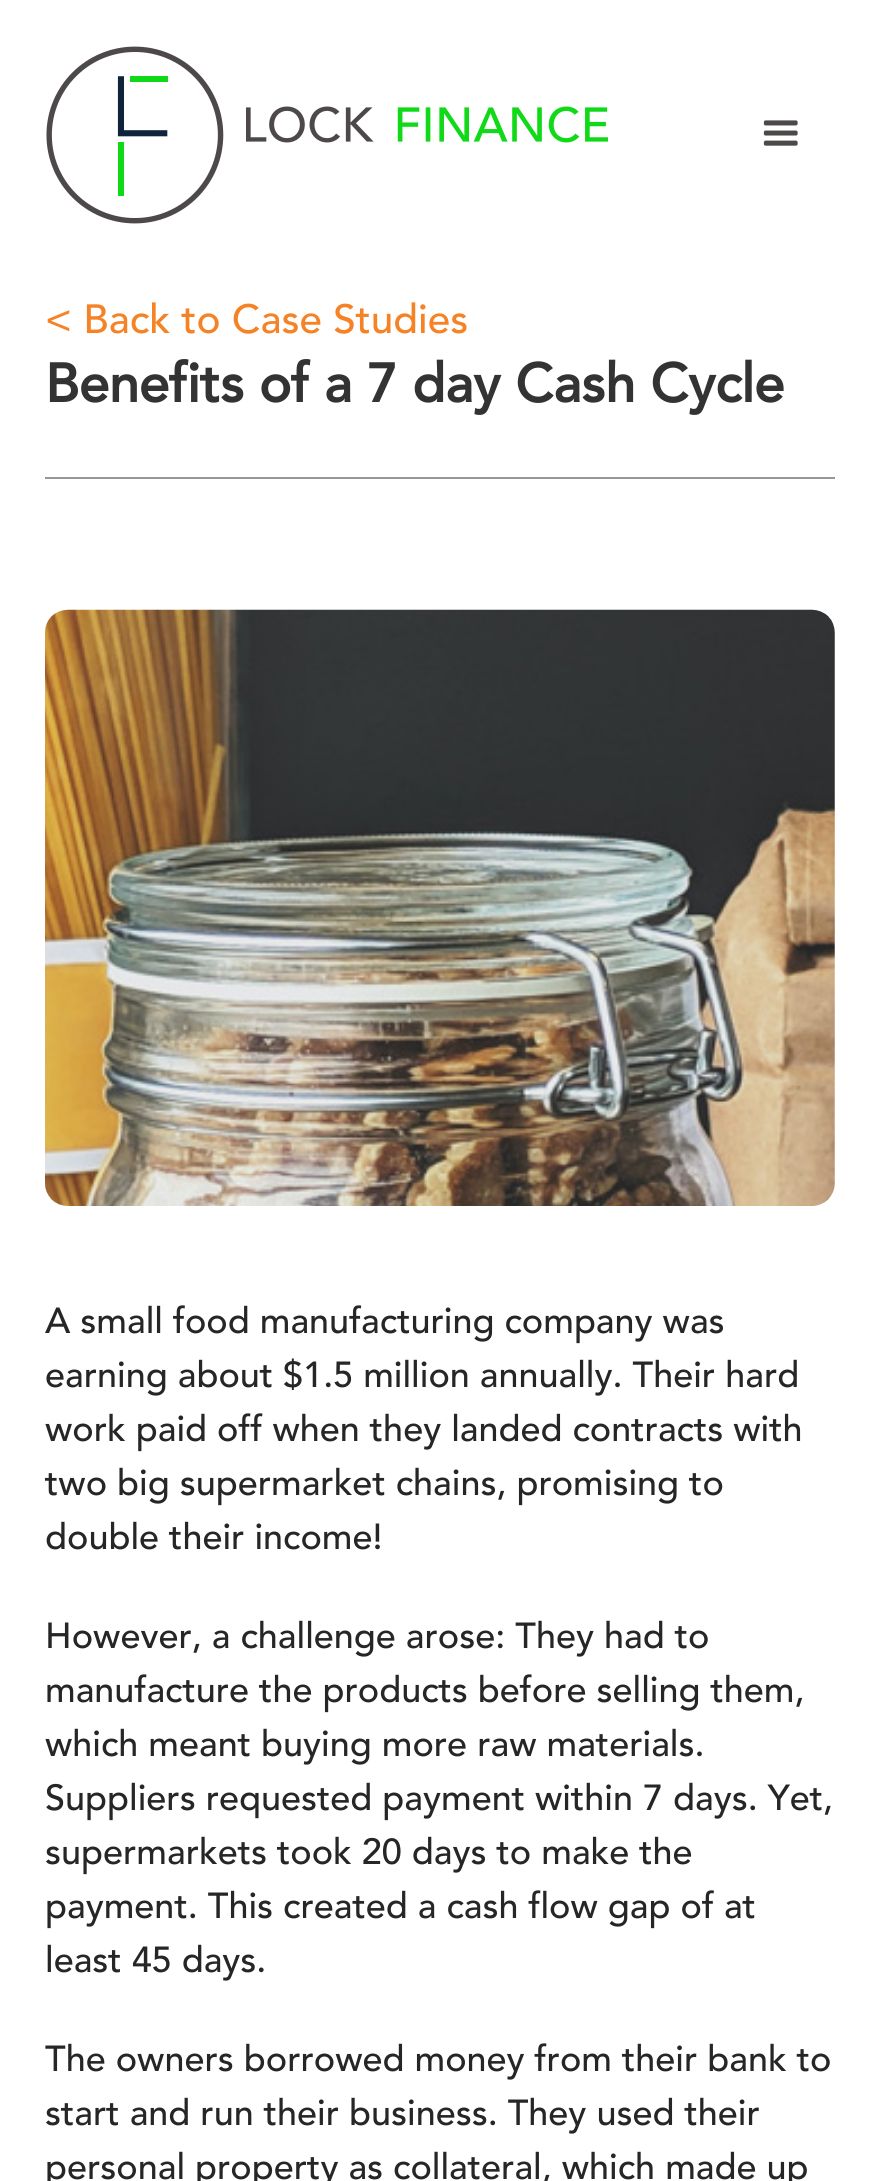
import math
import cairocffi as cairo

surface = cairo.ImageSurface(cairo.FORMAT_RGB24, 878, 2181)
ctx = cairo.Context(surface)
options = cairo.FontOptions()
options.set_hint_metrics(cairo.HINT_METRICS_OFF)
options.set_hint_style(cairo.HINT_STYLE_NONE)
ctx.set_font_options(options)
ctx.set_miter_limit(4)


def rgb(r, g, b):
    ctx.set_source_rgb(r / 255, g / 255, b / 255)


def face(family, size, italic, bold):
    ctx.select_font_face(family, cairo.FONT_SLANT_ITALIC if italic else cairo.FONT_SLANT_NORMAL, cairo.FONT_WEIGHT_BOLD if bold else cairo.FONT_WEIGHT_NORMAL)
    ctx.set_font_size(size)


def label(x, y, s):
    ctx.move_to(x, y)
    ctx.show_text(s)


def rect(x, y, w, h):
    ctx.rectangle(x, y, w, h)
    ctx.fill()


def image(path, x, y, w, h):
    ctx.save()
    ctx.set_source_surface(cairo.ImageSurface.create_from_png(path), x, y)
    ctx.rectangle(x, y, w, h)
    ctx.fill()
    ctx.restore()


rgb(255, 255, 255)
ctx.paint()
image('image0.png', 46, 46, 562, 178)
image('image1.png', 763, 120, 35, 26)
face('Avenir Medium', 40.5, 0, 0)
rgb(245, 130, 37)
label(45, 333, '< Back to Case Studies')
face('Avenir', 54, 0, 1)
rgb(51, 51, 51)
label(45, 402, 'Benefits of a 7 day Cash Cycle')
rgb(151, 151, 151)
rect(45, 477, 790, 2)
image('image2.png', 44, 609, 791, 597)
face('Avenir Medium', 36, 0, 0)
rgb(38, 38, 38)
label(45, 1333, 'A small food manufacturing company was')
label(45, 1387, 'earning about $1.5 million annually. Their hard')
label(45, 1441, 'work paid off when they landed contracts with')
label(45, 1495, 'two big supermarket chains, promising to')
label(45, 1549, 'double their income!')
label(45, 1648, 'However, a challenge arose: They had to')
label(45, 1702, 'manufacture the products before selling them,')
label(45, 1756, 'which meant buying more raw materials.')
label(45, 1810, 'Suppliers requested payment within 7 days. Yet,')
label(45, 1864, 'supermarkets took 20 days to make the')
label(45, 1918, 'payment. This created a cash flow gap of at')
label(45, 1972, 'least 45 days.')
label(45, 2071, 'The owners borrowed money from their bank to')
label(45, 2125, 'start and run their business. They used their')
label(45, 2179, 'personal property as collateral, which made up')
surface.write_to_png('render.png')
